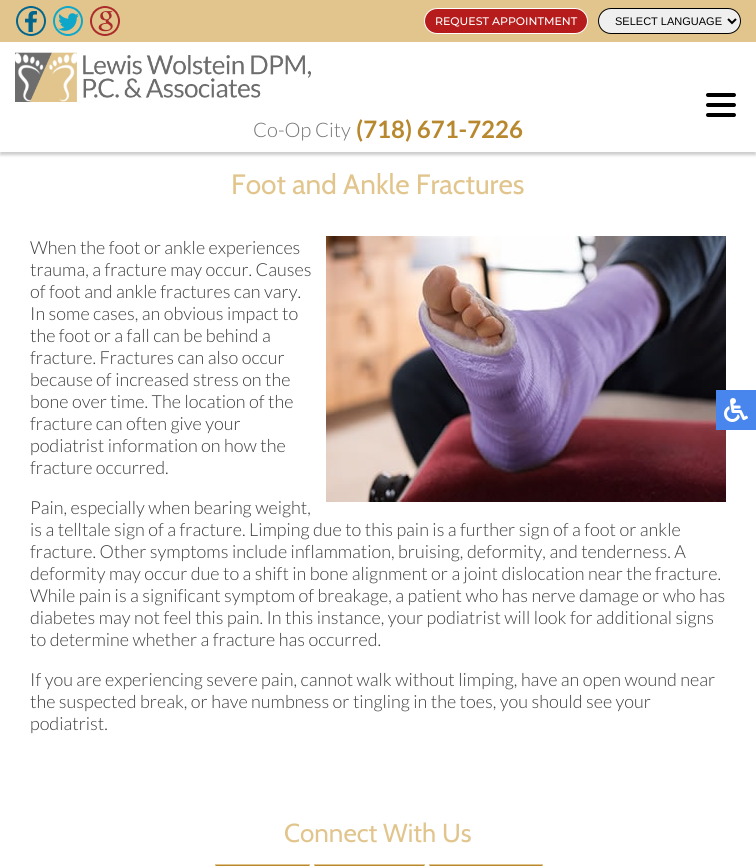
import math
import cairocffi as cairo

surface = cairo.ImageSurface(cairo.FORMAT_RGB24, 756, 866)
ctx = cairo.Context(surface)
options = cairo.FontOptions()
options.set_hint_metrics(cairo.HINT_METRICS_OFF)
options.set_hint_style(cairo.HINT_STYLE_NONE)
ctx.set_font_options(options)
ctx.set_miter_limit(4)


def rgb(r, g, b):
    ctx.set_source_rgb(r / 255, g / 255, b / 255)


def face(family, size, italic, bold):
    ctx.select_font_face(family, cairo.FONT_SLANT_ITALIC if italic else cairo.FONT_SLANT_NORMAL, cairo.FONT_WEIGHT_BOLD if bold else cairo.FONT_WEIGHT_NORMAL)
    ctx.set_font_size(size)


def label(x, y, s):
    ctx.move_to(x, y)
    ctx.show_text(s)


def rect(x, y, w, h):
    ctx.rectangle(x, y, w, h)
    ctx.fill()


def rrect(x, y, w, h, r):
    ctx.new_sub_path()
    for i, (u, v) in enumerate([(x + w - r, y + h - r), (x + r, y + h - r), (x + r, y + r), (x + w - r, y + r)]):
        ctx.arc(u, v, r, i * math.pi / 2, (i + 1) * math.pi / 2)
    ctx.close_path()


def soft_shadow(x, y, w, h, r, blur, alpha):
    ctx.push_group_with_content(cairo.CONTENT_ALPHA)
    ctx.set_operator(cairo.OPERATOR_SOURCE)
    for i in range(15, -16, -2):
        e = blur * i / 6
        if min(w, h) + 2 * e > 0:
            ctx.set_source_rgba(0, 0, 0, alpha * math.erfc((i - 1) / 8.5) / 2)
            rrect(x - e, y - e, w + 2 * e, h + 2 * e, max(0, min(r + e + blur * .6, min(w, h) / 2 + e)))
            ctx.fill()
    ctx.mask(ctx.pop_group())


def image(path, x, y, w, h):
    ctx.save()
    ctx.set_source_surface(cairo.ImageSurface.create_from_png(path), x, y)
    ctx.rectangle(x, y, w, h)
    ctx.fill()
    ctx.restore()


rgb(255, 255, 255)
ctx.paint()
rgb(0, 0, 0)
soft_shadow(0, 3, 756, 152, 0, 1.5, 0.2)
rgb(255, 255, 255)
rect(0, 42, 756, 110)
rgb(225, 197, 141)
rect(0, 0, 756, 42)
image('image0.png', 16, 6, 30, 30)
image('image1.png', 53, 6, 30, 30)
image('image2.png', 90, 6, 30, 30)
rgb(183, 28, 28)
rrect(424.5, 8.5, 163, 25, 12.5)
ctx.fill_preserve()
rgb(255, 255, 255)
ctx.set_line_width(1)
ctx.stroke()
face('Montserrat Medium', 11, 0, 0)
label(435, 25, 'REQUEST APPOINTMENT')
rgb(239, 239, 239)
rrect(598.5, 8.5, 142, 25, 12.5)
ctx.fill_preserve()
rgb(0, 0, 0)
ctx.stroke()
ctx.new_path()
ctx.move_to(728, 19)
ctx.line_to(732, 23)
ctx.line_to(736, 19)
ctx.set_line_width(2)
ctx.stroke()
face('Liberation Sans', 11, 0, 0)
label(615, 25, 'SELECT LANGUAGE')
image('image3.png', 15, 52, 296, 50)
rrect(706, 93, 30, 4, 2)
ctx.fill()
rrect(706, 103, 30, 4, 2)
ctx.fill()
rrect(706, 113, 30, 4, 2)
ctx.fill()
face('Lato Light', 20, 0, 0)
rgb(116, 116, 116)
label(253, 137, 'Co-Op City')
face('Lato', 24, 0, 1)
rgb(183, 136, 46)
label(356, 138, '(718) 671-7226')
face('Cabin', 28, 0, 0)
rgb(225, 197, 141)
label(231, 194, 'Foot and Ankle Fractures')
face('Lato Light', 18, 0, 0)
rgb(60, 60, 60)
label(30, 254, 'When the foot or ankle experiences')
label(30, 276, 'trauma, a fracture may occur. Causes')
label(30, 298, 'of foot and ankle fractures can vary.')
label(30, 320, 'In some cases, an obvious impact to')
label(30, 342, 'the foot or a fall can be behind a')
label(30, 364, 'fracture. Fractures can also occur')
label(30, 386, 'because of increased stress on the')
label(30, 408, 'bone over time. The location of the')
label(30, 430, 'fracture can often give your')
label(30, 452, 'podiatrist information on how the')
label(30, 474, 'fracture occurred.')
image('image4.png', 326, 236, 400, 266)
label(30, 514, 'Pain, especially when bearing weight,')
label(30, 536, 'is a telltale sign of a fracture. Limping due to this pain is a further sign of a foot or ankle')
label(30, 558, 'fracture. Other symptoms include inflammation, bruising, deformity, and tenderness. A')
label(30, 580, 'deformity may occur due to a shift in bone alignment or a joint dislocation near the fracture.')
label(30, 602, 'While pain is a significant symptom of breakage, a patient who has nerve damage or who has')
label(30, 624, 'diabetes may not feel this pain. In this instance, your podiatrist will look for additional signs')
label(30, 646, 'to determine whether a fracture has occurred.')
label(30, 686, 'If you are experiencing severe pain, cannot walk without limping, have an open wound near')
label(30, 708, 'the suspected break, or have numbness or tingling in the toes, you should see your')
label(30, 730, 'podiatrist.')
rgb(72, 133, 237)
rect(716, 390, 40, 40)
image('image5.png', 724, 398, 24, 24)
face('Cabin', 26, 0, 0)
rgb(225, 197, 141)
label(284, 842, 'Connect With Us')
rgb(183, 136, 46)
ctx.rectangle(215.5, 864.5, 94, 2)
ctx.fill_preserve()
rgb(225, 197, 141)
ctx.set_line_width(1)
ctx.stroke()
rgb(183, 136, 46)
ctx.rectangle(314.5, 864.5, 110, 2)
ctx.fill_preserve()
rgb(225, 197, 141)
ctx.stroke()
rgb(183, 136, 46)
ctx.rectangle(429.5, 864.5, 113, 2)
ctx.fill_preserve()
rgb(225, 197, 141)
ctx.stroke()
surface.write_to_png('render.png')
